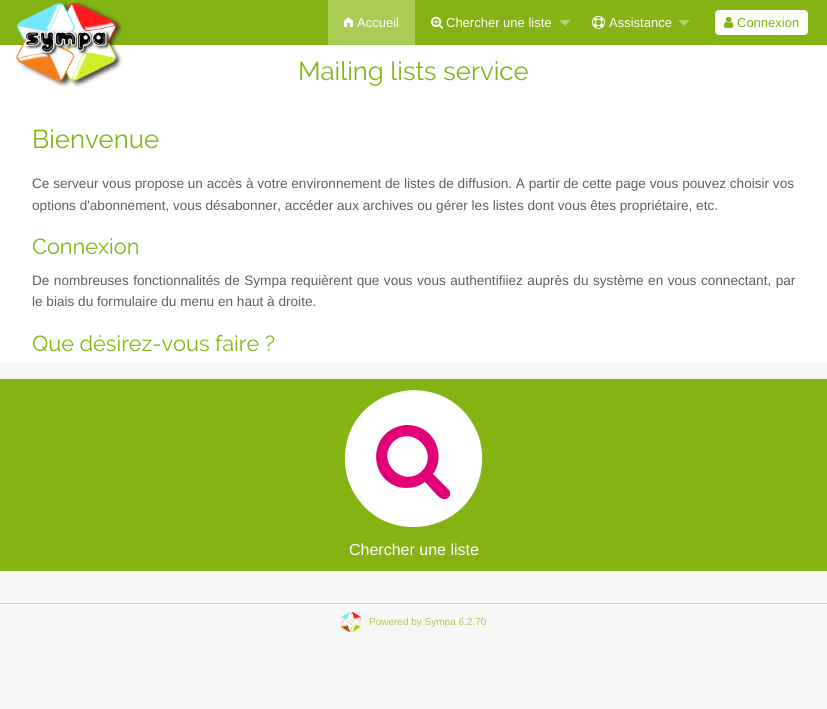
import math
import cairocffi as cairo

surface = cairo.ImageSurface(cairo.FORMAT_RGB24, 827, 709)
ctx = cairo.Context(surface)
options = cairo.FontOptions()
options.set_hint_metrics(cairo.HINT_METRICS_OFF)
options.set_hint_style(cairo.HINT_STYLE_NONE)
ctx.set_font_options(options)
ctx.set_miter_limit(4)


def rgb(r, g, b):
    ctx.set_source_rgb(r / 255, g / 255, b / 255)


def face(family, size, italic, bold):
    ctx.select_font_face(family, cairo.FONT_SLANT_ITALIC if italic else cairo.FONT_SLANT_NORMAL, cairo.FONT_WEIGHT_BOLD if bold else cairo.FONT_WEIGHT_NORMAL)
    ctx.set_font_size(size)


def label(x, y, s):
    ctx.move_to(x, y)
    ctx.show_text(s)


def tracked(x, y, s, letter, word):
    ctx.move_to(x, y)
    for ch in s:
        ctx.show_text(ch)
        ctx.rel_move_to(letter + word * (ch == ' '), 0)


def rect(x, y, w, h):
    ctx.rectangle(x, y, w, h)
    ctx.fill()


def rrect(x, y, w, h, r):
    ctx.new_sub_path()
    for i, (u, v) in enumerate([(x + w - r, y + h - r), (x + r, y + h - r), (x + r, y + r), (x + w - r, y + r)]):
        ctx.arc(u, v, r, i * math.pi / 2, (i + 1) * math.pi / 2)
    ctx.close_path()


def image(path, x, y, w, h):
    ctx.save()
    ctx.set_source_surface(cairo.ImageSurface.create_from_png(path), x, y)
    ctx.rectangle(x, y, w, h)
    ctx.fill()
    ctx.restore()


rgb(247, 247, 247)
ctx.paint()
rgb(132, 180, 20)
rect(0, 0, 827, 45)
rgb(255, 255, 255)
rect(0, 45, 827, 318)
image('image0.png', 16, 1, 107, 86)
rgb(169, 204, 82)
rect(328, 0, 87, 45)
image('image1.png', 344, 17, 9, 11)
face('Liberation Sans', 13, 0, 0)
rgb(255, 255, 255)
label(357, 27, 'Accueil')
image('image2.png', 431, 16, 12, 13)
label(446, 27, 'Chercher une liste')
rgb(181, 210, 114)
ctx.new_path()
ctx.move_to(559, 20)
ctx.line_to(571, 20)
ctx.line_to(565, 26)
ctx.close_path()
ctx.fill()
image('image3.png', 592, 15, 13, 14)
rgb(255, 255, 255)
label(609, 27, 'Assistance')
rgb(181, 210, 114)
ctx.new_path()
ctx.move_to(678, 20)
ctx.line_to(690, 20)
ctx.line_to(684, 26)
ctx.close_path()
ctx.fill()
rgb(255, 255, 255)
rrect(715, 10, 93, 25, 4)
ctx.fill()
image('image4.png', 724, 16, 10, 12)
rgb(132, 180, 20)
label(737, 27, 'Connexion')
face('Raleway', 25.75, 0, 0)
label(298, 80, 'Mailing lists service')
label(32, 148, 'Bienvenue')
face('Liberation Sans', 13.6, 0, 0)
rgb(94, 94, 94)
label(32, 188, 'Ce serveur vous propose un accès à votre environnement de listes de diffusion. A partir de cette page vous pouvez choisir vos')
label(32, 210, 'options d\'abonnement, vous désabonner, accéder aux archives ou gérer les listes dont vous êtes propriétaire, etc.')
face('Raleway', 21.75, 0, 0)
rgb(132, 180, 20)
label(32, 254, 'Connexion')
face('Liberation Sans', 13.6, 0, 0)
rgb(94, 94, 94)
tracked(32, 285, 'De nombreuses fonctionnalités de Sympa requièrent que vous vous authentifiiez auprès du système en vous connectant, par', 0, 0.7)
label(32, 306, 'le biais du formulaire du menu en haut à droite.')
face('Raleway', 21.75, 0, 0)
rgb(132, 180, 20)
label(32, 351, 'Que désirez-vous faire ?')
rect(0, 379, 827, 192)
rgb(255, 255, 255)
ctx.new_path()
ctx.move_to(473, 424)
ctx.curve_to(480, 436, 483, 450, 482, 463)
ctx.curve_to(478, 531, 388, 551, 354, 493)
ctx.curve_to(347, 481, 344, 468, 345, 454)
ctx.curve_to(349, 387, 439, 366, 473, 424)
ctx.close_path()
ctx.fill()
rgb(225, 0, 120)
ctx.new_path()
ctx.move_to(422, 471)
ctx.curve_to(440, 452, 412, 424, 393, 442)
ctx.curve_to(375, 461, 403, 489, 422, 471)
ctx.close_path()
ctx.move_to(450, 494)
ctx.curve_to(450, 496, 449, 497, 448, 498)
ctx.curve_to(443, 502, 438, 496, 435, 493)
ctx.line_to(425, 482)
ctx.curve_to(417, 488, 407, 489, 398, 487)
ctx.curve_to(368, 477, 369, 434, 400, 426)
ctx.curve_to(407, 424, 414, 425, 421, 428)
ctx.curve_to(438, 436, 444, 459, 433, 474)
ctx.line_to(449, 490)
ctx.curve_to(450, 491, 450, 492, 450, 494)
ctx.close_path()
ctx.fill()
face('Liberation Sans', 16, 0, 0)
rgb(255, 255, 255)
label(349, 555, 'Chercher une liste')
rgb(191, 210, 225)
rect(0, 603, 827, 1)
image('image5.png', 341, 612, 20, 20)
face('Liberation Sans', 10, 0, 0)
rgb(169, 204, 82)
label(369, 625, 'Powered by Sympa 6.2.70')
surface.write_to_png('render.png')
